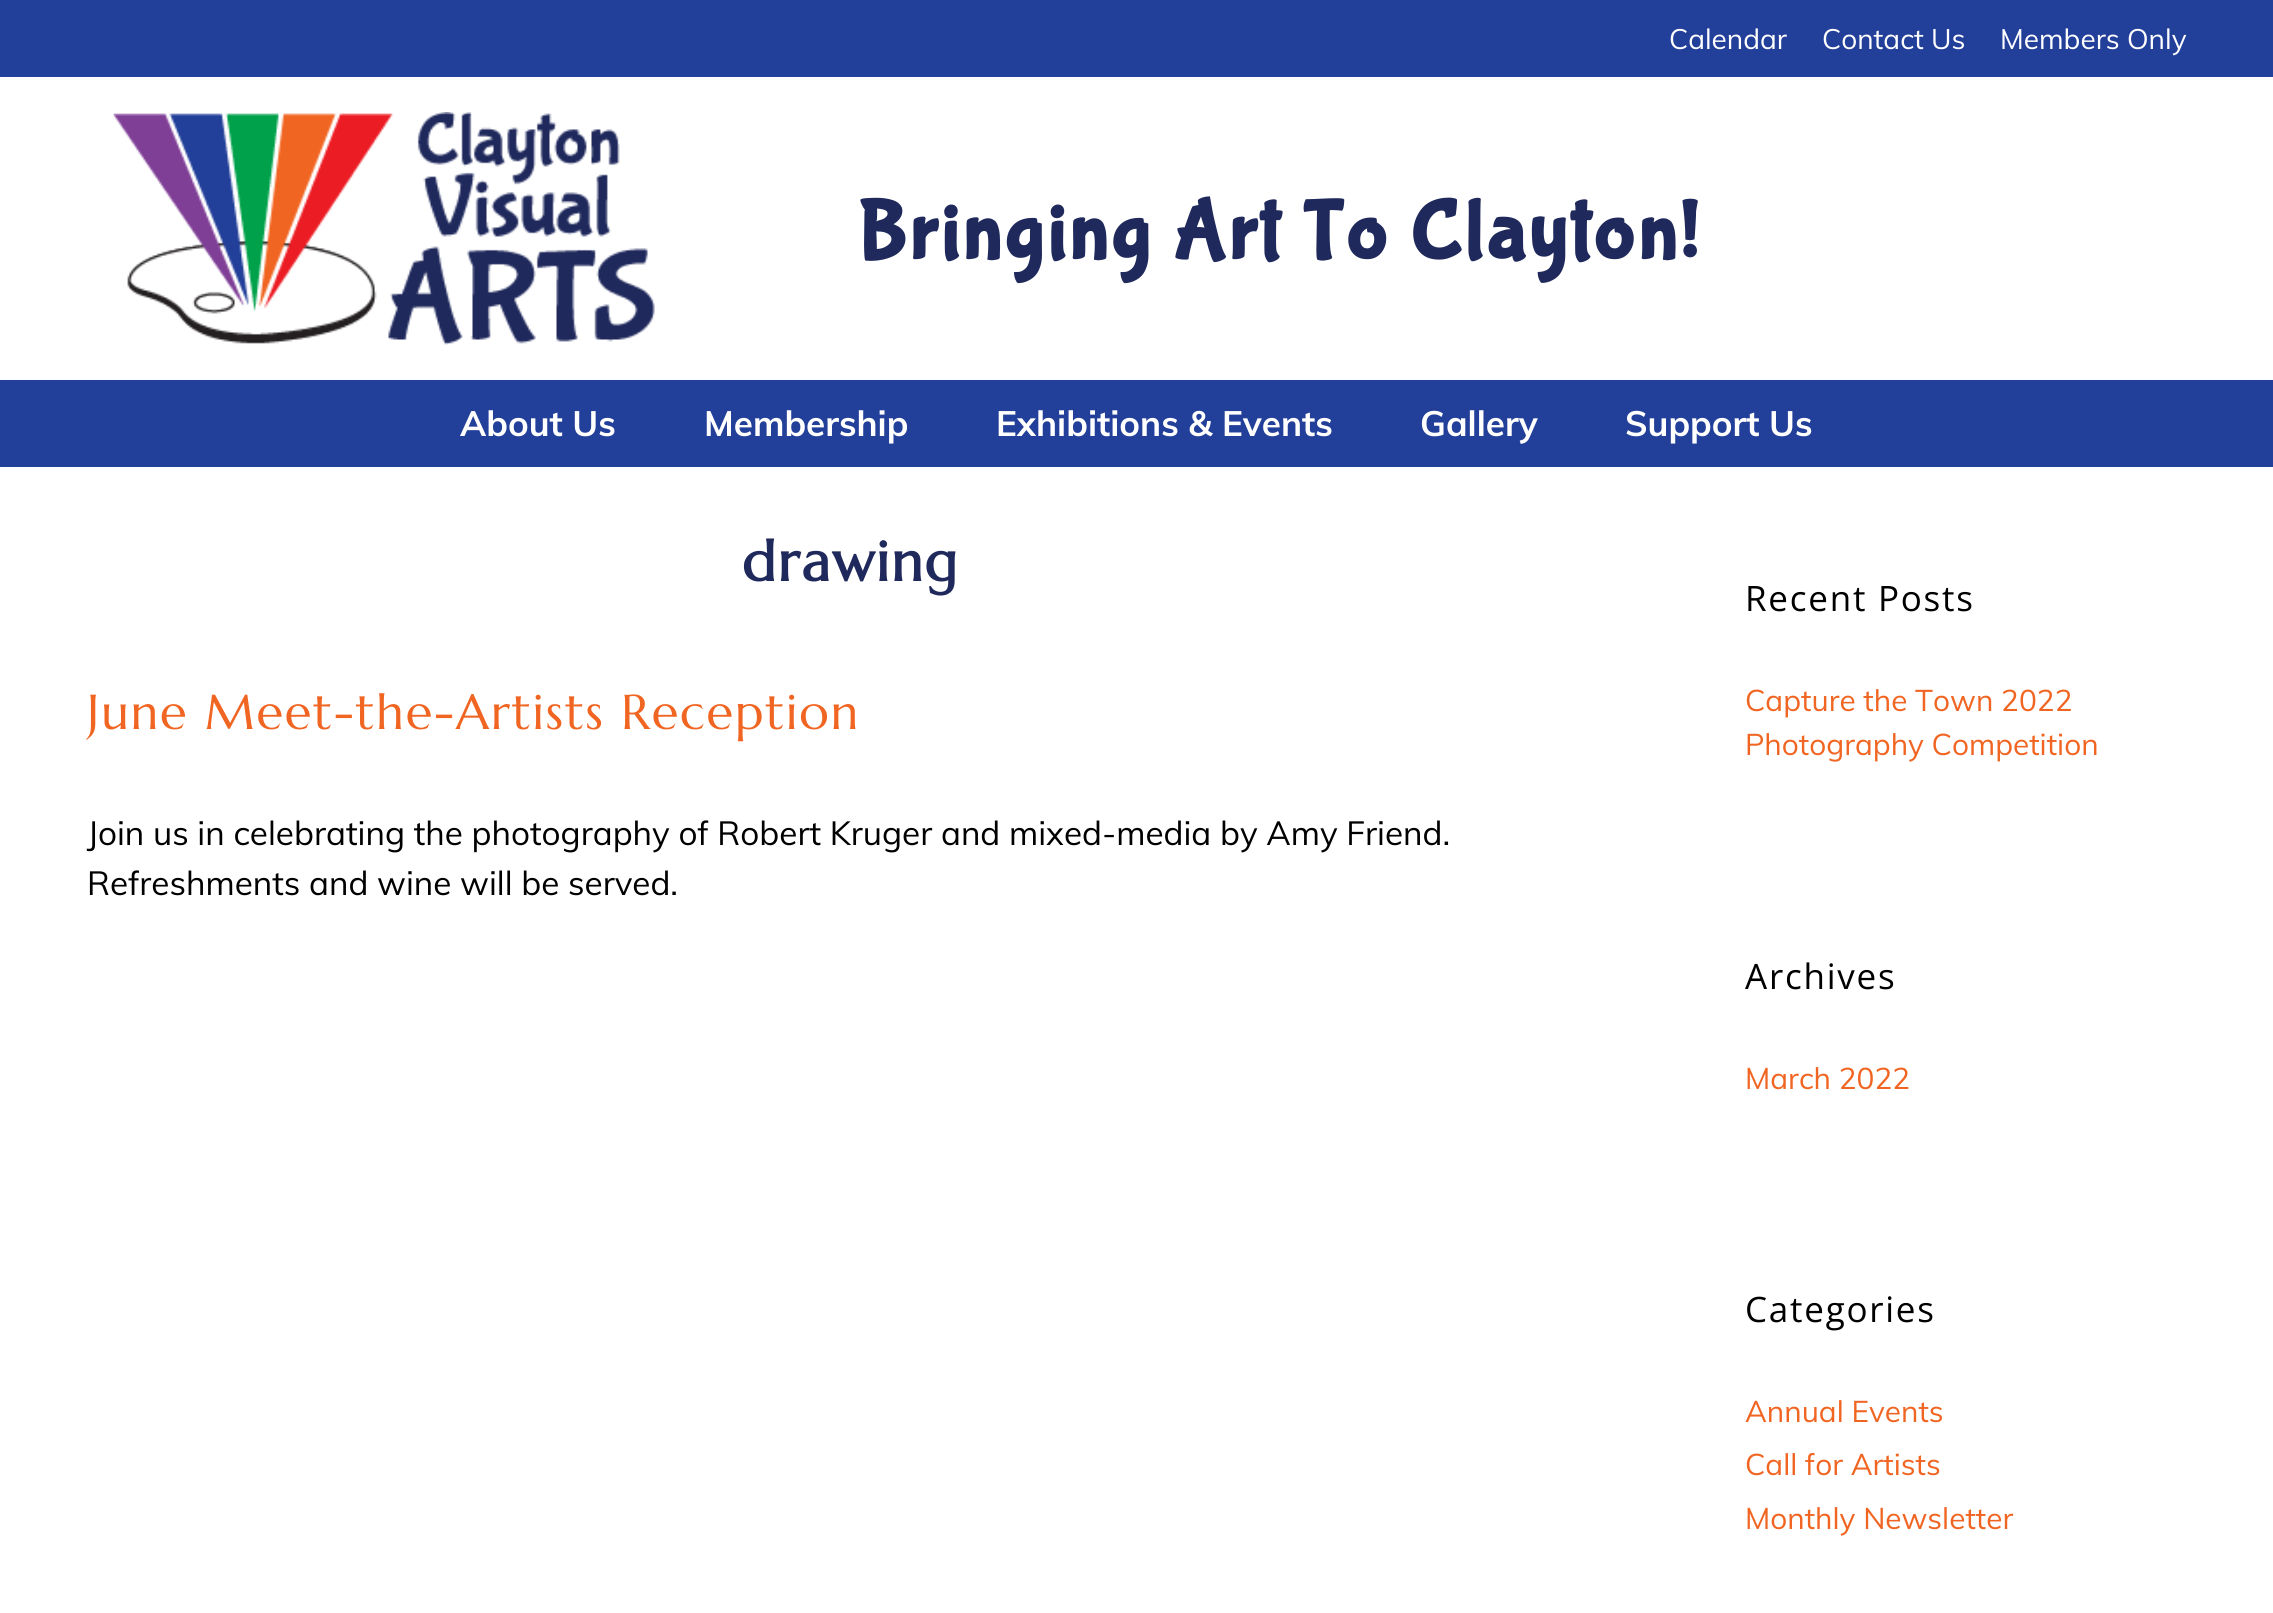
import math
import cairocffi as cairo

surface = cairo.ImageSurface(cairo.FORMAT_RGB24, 2273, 1613)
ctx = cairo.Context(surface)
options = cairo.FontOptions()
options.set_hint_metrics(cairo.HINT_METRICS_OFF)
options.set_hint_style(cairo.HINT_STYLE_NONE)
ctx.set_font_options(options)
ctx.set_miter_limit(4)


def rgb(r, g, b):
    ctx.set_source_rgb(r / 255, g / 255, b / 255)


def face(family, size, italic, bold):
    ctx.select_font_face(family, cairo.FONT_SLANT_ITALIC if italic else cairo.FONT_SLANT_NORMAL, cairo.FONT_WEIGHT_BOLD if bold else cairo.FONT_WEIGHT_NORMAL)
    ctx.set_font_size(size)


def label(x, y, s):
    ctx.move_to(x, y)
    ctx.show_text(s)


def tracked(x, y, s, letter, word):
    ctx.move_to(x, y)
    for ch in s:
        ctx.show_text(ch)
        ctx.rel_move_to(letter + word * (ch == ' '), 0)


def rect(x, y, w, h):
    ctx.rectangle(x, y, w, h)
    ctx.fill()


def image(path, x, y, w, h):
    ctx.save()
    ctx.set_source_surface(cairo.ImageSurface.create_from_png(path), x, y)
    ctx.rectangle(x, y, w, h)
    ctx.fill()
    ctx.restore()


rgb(255, 255, 255)
ctx.paint()
rgb(34, 63, 153)
rect(0, 0, 2273, 77)
face('Muli', 28, 0, 0)
rgb(255, 255, 255)
label(1669, 49, 'Calendar')
label(1822, 49, 'Contact Us')
label(2000, 49, 'Members Only')
image('image0.png', 113, 112, 542, 233)
face('Bubblegum Sans', 84, 0, 1)
rgb(32, 41, 92)
tracked(857, 257, 'Bringing Art To Clayton!', 3.5, 0)
rgb(34, 63, 153)
rect(0, 380, 2273, 87)
face('Muli', 35, 0, 1)
rgb(255, 255, 255)
label(460, 436, 'About Us')
label(704, 436, 'Membership')
label(996, 436, 'Exhibitions & Events')
label(1420, 436, 'Gallery')
label(1625, 436, 'Support Us')
face('Marcellus', 56, 0, 1)
rgb(32, 41, 92)
tracked(742, 581, 'drawing', 1.75, 0)
face('Marcellus', 49, 0, 0)
rgb(241, 101, 34)
tracked(87, 729, 'June Meet-the-Artists Reception', 1.75, 0)
face('Muli', 33.25, 0, 0)
rgb(0, 0, 0)
label(87, 845, 'Join us in celebrating the photography of Robert Kruger and mixed-media by Amy Friend.')
label(87, 895, 'Refreshments and wine will be served.')
face('Open Sans', 35, 0, 0)
tracked(1745, 611, 'Recent Posts', 1.75, 0)
face('Muli', 29.75, 0, 0)
rgb(241, 101, 34)
label(1745, 711, 'Capture the Town 2022')
label(1745, 755, 'Photography Competition')
face('Open Sans', 35, 0, 0)
rgb(0, 0, 0)
tracked(1745, 989, 'Archives', 1.75, 0)
face('Muli', 29.75, 0, 0)
rgb(241, 101, 34)
label(1745, 1089, 'March 2022')
face('Open Sans', 35, 0, 0)
rgb(0, 0, 0)
tracked(1745, 1322, 'Categories', 1.75, 0)
face('Muli', 29.75, 0, 0)
rgb(241, 101, 34)
label(1745, 1422, 'Annual Events')
label(1745, 1475, 'Call for Artists')
label(1745, 1529, 'Monthly Newsletter')
surface.write_to_png('render.png')
